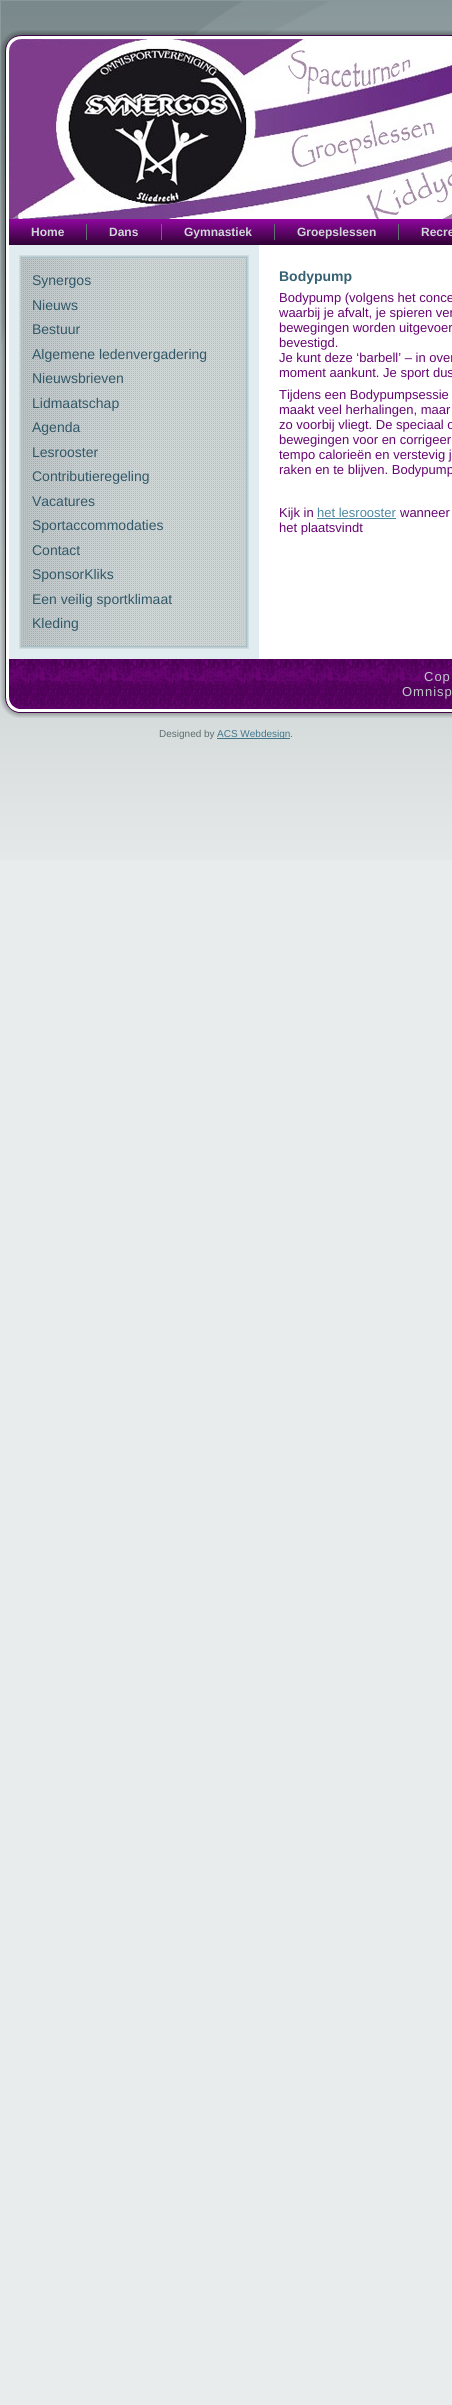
import math
import cairocffi as cairo

surface = cairo.ImageSurface(cairo.FORMAT_RGB24, 452, 2405)
ctx = cairo.Context(surface)
options = cairo.FontOptions()
options.set_hint_metrics(cairo.HINT_METRICS_OFF)
options.set_hint_style(cairo.HINT_STYLE_NONE)
ctx.set_font_options(options)
ctx.set_miter_limit(4)


def rgb(r, g, b):
    ctx.set_source_rgb(r / 255, g / 255, b / 255)


def face(family, size, italic, bold):
    ctx.select_font_face(family, cairo.FONT_SLANT_ITALIC if italic else cairo.FONT_SLANT_NORMAL, cairo.FONT_WEIGHT_BOLD if bold else cairo.FONT_WEIGHT_NORMAL)
    ctx.set_font_size(size)


def label(x, y, s):
    ctx.move_to(x, y)
    ctx.show_text(s)


def tracked(x, y, s, letter, word):
    ctx.move_to(x, y)
    for ch in s:
        ctx.show_text(ch)
        ctx.rel_move_to(letter + word * (ch == ' '), 0)


def rect(x, y, w, h):
    ctx.rectangle(x, y, w, h)
    ctx.fill()


def image(path, x, y, w, h):
    ctx.save()
    ctx.set_source_surface(cairo.ImageSurface.create_from_png(path), x, y)
    ctx.rectangle(x, y, w, h)
    ctx.fill()
    ctx.restore()


rgb(233, 236, 236)
ctx.paint()
image('image0.png', 0, 0, 452, 860)
image('image1.png', 1, 1, 328, 342)
image('image2.png', 0, 30, 36, 36)
image('image3.png', 36, 30, 416, 9)
image('image4.png', 0, 66, 9, 616)
image('image5.png', 9, 39, 443, 180)
image('image6.png', 21, 51, 431, 156)
image('image7.png', 9, 219, 443, 26)
face('Liberation Sans', 12, 0, 1)
rgb(208, 214, 215)
label(31, 236, 'Home')
rgb(96, 111, 113)
rect(86, 224, 1, 16)
rgb(208, 214, 215)
label(109, 236, 'Dans')
rgb(96, 111, 113)
rect(161, 224, 1, 16)
rgb(208, 214, 215)
label(184, 236, 'Gymnastiek')
rgb(96, 111, 113)
rect(274, 224, 1, 16)
rgb(208, 214, 215)
label(297, 236, 'Groepslessen')
rgb(96, 111, 113)
rect(398, 224, 1, 16)
rgb(208, 214, 215)
label(421, 236, 'Recre')
rgb(224, 236, 240)
rect(9, 245, 250, 414)
image('image8.png', 19, 255, 9, 9)
image('image9.png', 28, 255, 212, 9)
image('image10.png', 240, 255, 9, 9)
image('image11.png', 19, 264, 9, 376)
image('image12.png', 28, 264, 212, 376)
image('image13.png', 240, 264, 9, 376)
face('Liberation Sans', 14, 0, 0)
rgb(49, 88, 104)
label(32, 285, 'Synergos')
label(32, 310, 'Nieuws')
label(32, 334, 'Bestuur')
label(32, 359, 'Algemene ledenvergadering')
label(32, 383, 'Nieuwsbrieven')
label(32, 408, 'Lidmaatschap')
label(32, 432, 'Agenda')
label(32, 457, 'Lesrooster')
label(32, 481, 'Contributieregeling')
label(32, 506, 'Vacatures')
label(32, 530, 'Sportaccommodaties')
label(32, 555, 'Contact')
label(32, 579, 'SponsorKliks')
label(32, 604, 'Een veilig sportklimaat')
label(32, 628, 'Kleding')
image('image14.png', 19, 640, 9, 9)
image('image15.png', 28, 640, 212, 9)
image('image16.png', 240, 640, 9, 9)
rgb(255, 255, 255)
rect(259, 245, 193, 414)
face('Liberation Sans', 14, 0, 1)
rgb(54, 97, 114)
label(279, 281, 'Bodypump')
face('Liberation Sans', 13, 0, 0)
rgb(103, 4, 114)
label(279, 302, 'Bodypump (volgens het conce')
label(279, 317, 'waarbij je afvalt, je spieren ver')
label(279, 332, 'bewegingen worden uitgevoer')
label(279, 347, 'bevestigd.')
label(279, 362, 'Je kunt deze ‘barbell’ – in over')
label(279, 377, 'moment aankunt. Je sport dus')
label(279, 399, 'Tijdens een Bodypumpsessie')
label(279, 414, 'maakt veel herhalingen, maar')
label(279, 429, 'zo voorbij vliegt. De speciaal o')
label(279, 444, 'bewegingen voor en corrigeer')
label(279, 459, 'tempo calorieën en verstevig j')
label(279, 474, 'raken en te blijven. Bodypump')
label(279, 517, 'Kijk in')
rgb(75, 136, 160)
label(317, 517, 'het lesrooster')
rect(317, 518, 79, 1)
rgb(103, 4, 114)
label(400, 517, 'wanneer')
label(279, 532, 'het plaatsvindt')
image('image18.png', 0, 682, 36, 36)
image('image17.png', 9, 659, 443, 50)
rgb(192, 200, 201)
tracked(424, 681, 'Cop', 1, 0)
tracked(402, 696, 'Omnisp', 1, 0)
image('image19.png', 36, 709, 416, 9)
face('Liberation Sans', 10, 0, 0)
rgb(94, 109, 110)
label(159, 737, 'Designed by')
rgb(65, 118, 139)
rect(217, 738, 73, 1)
label(217, 737, 'ACS Webdesign')
rgb(94, 109, 110)
label(290, 737, '.')
surface.write_to_png('render.png')
